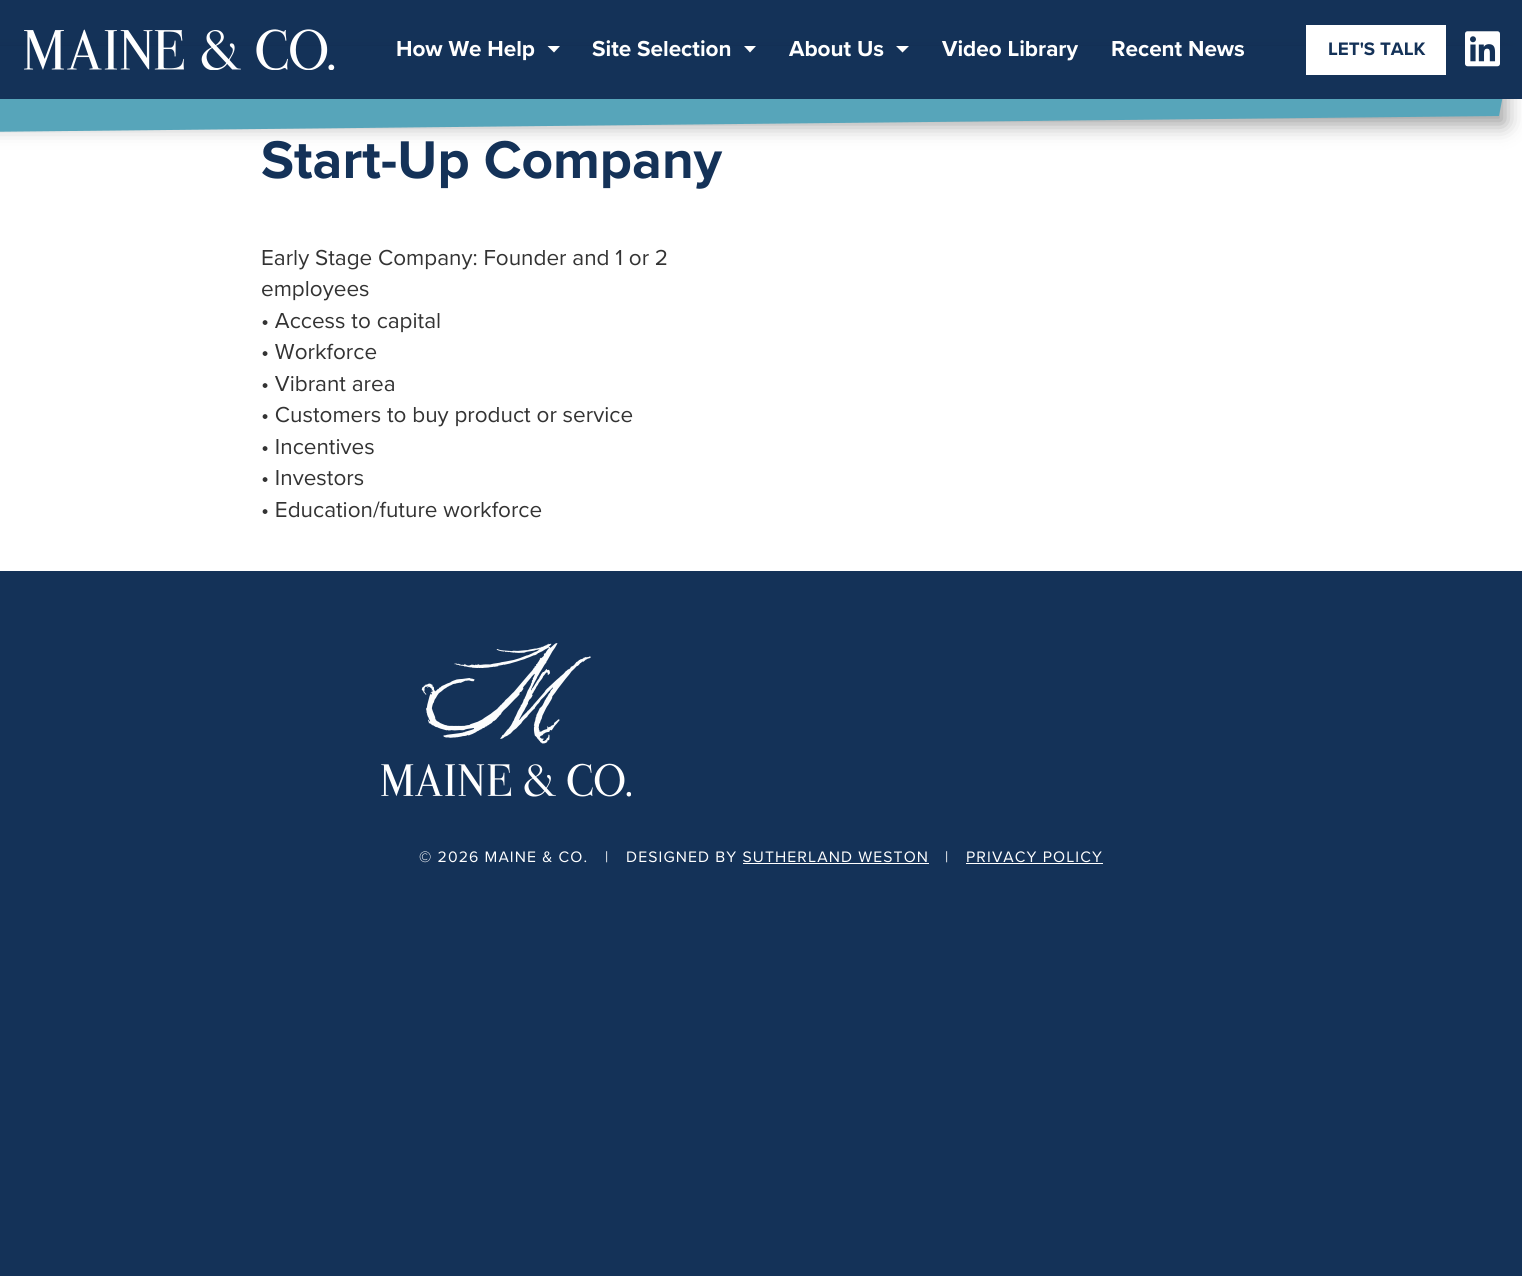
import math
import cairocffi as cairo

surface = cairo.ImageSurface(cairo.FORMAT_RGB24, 1522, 1276)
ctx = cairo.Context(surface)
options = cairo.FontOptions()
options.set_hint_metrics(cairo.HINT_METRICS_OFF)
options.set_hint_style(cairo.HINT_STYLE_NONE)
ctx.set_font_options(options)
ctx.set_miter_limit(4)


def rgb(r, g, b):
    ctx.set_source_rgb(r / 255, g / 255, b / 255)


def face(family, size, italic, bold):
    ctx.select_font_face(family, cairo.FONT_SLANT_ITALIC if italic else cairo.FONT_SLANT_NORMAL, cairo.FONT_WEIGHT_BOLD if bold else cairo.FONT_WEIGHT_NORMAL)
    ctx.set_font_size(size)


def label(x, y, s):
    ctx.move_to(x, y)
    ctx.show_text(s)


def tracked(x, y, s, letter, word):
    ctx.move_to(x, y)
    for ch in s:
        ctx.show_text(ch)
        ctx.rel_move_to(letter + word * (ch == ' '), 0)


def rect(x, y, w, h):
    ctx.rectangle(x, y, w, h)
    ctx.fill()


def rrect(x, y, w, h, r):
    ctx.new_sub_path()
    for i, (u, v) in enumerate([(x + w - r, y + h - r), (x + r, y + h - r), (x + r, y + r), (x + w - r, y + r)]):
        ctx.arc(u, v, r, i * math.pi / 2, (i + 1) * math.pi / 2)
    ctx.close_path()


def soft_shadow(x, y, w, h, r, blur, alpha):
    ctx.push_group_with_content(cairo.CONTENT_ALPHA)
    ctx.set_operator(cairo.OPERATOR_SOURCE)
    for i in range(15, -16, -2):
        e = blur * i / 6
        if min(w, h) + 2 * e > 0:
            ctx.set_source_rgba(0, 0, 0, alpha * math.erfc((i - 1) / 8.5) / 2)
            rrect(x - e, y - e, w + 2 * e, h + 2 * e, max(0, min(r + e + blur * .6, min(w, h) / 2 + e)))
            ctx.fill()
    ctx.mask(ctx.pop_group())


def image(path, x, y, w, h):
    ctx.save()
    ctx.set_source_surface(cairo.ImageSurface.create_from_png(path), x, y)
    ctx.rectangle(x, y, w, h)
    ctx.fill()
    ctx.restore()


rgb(20, 50, 88)
ctx.paint()
rgb(255, 255, 255)
rect(0, 99, 1522, 472)
rgb(0, 0, 0)
soft_shadow(-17, 61, 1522, 63, 0, 10.5, 0.4)
rgb(87, 165, 186)
ctx.new_path()
ctx.move_to(-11, 70)
ctx.line_to(1511, 54)
ctx.line_to(1499, 116)
ctx.line_to(-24, 132)
ctx.close_path()
ctx.fill()
rgb(20, 50, 88)
rect(0, 46, 1520, 53)
image('image0.png', 24, 29, 311, 41)
face('Proxima Nova', 22.5, 0, 1)
rgb(255, 255, 255)
label(396, 56, 'How We Help')
ctx.new_path()
ctx.move_to(547.5, 46)
ctx.line_to(560, 46)
ctx.line_to(554, 52.5)
ctx.close_path()
ctx.fill()
label(592, 56, 'Site Selection')
ctx.new_path()
ctx.move_to(744, 46)
ctx.line_to(756, 46)
ctx.line_to(750, 52.5)
ctx.close_path()
ctx.fill()
label(789, 56, 'About Us')
ctx.new_path()
ctx.move_to(896, 46)
ctx.line_to(909, 46)
ctx.line_to(902.5, 52.5)
ctx.close_path()
ctx.fill()
label(942, 56, 'Video Library')
label(1111, 56, 'Recent News')
rect(1306, 25, 140, 50)
face('Proxima Nova', 18.75, 0, 1)
rgb(20, 50, 88)
label(1328, 55, 'LET\'S TALK')
image('image1.png', 1465, 31, 35, 36)
face('Proxima Nova', 55, 0, 1)
label(261, 178, 'Start-Up Company')
face('Proxima Nova', 22.5, 0, 0)
rgb(51, 51, 51)
label(261, 265, 'Early Stage Company: Founder and 1 or 2')
label(261, 296, 'employees')
label(261, 328, '• Access to capital')
label(261, 359, '• Workforce')
label(261, 391, '• Vibrant area')
label(261, 422, '• Customers to buy product or service')
label(261, 454, '• Incentives')
label(261, 485, '• Investors')
label(261, 517, '• Education/future workforce')
image('image2.png', 381, 643, 250, 154)
face('Proxima Nova', 15.75, 0, 0)
rgb(255, 255, 255)
tracked(419, 862, '© 2026 MAINE & CO.', 1.1, 0)
tracked(605, 862, '|', 1.1, 0)
tracked(626, 862, 'DESIGNED BY SUTHERLAND WESTON', 1.1, 0)
tracked(945, 862, '|', 1.1, 0)
tracked(966, 862, 'PRIVACY POLICY', 1.1, 0)
rect(966, 863, 137, 1)
rect(743, 863, 186, 1)
surface.write_to_png('render.png')
